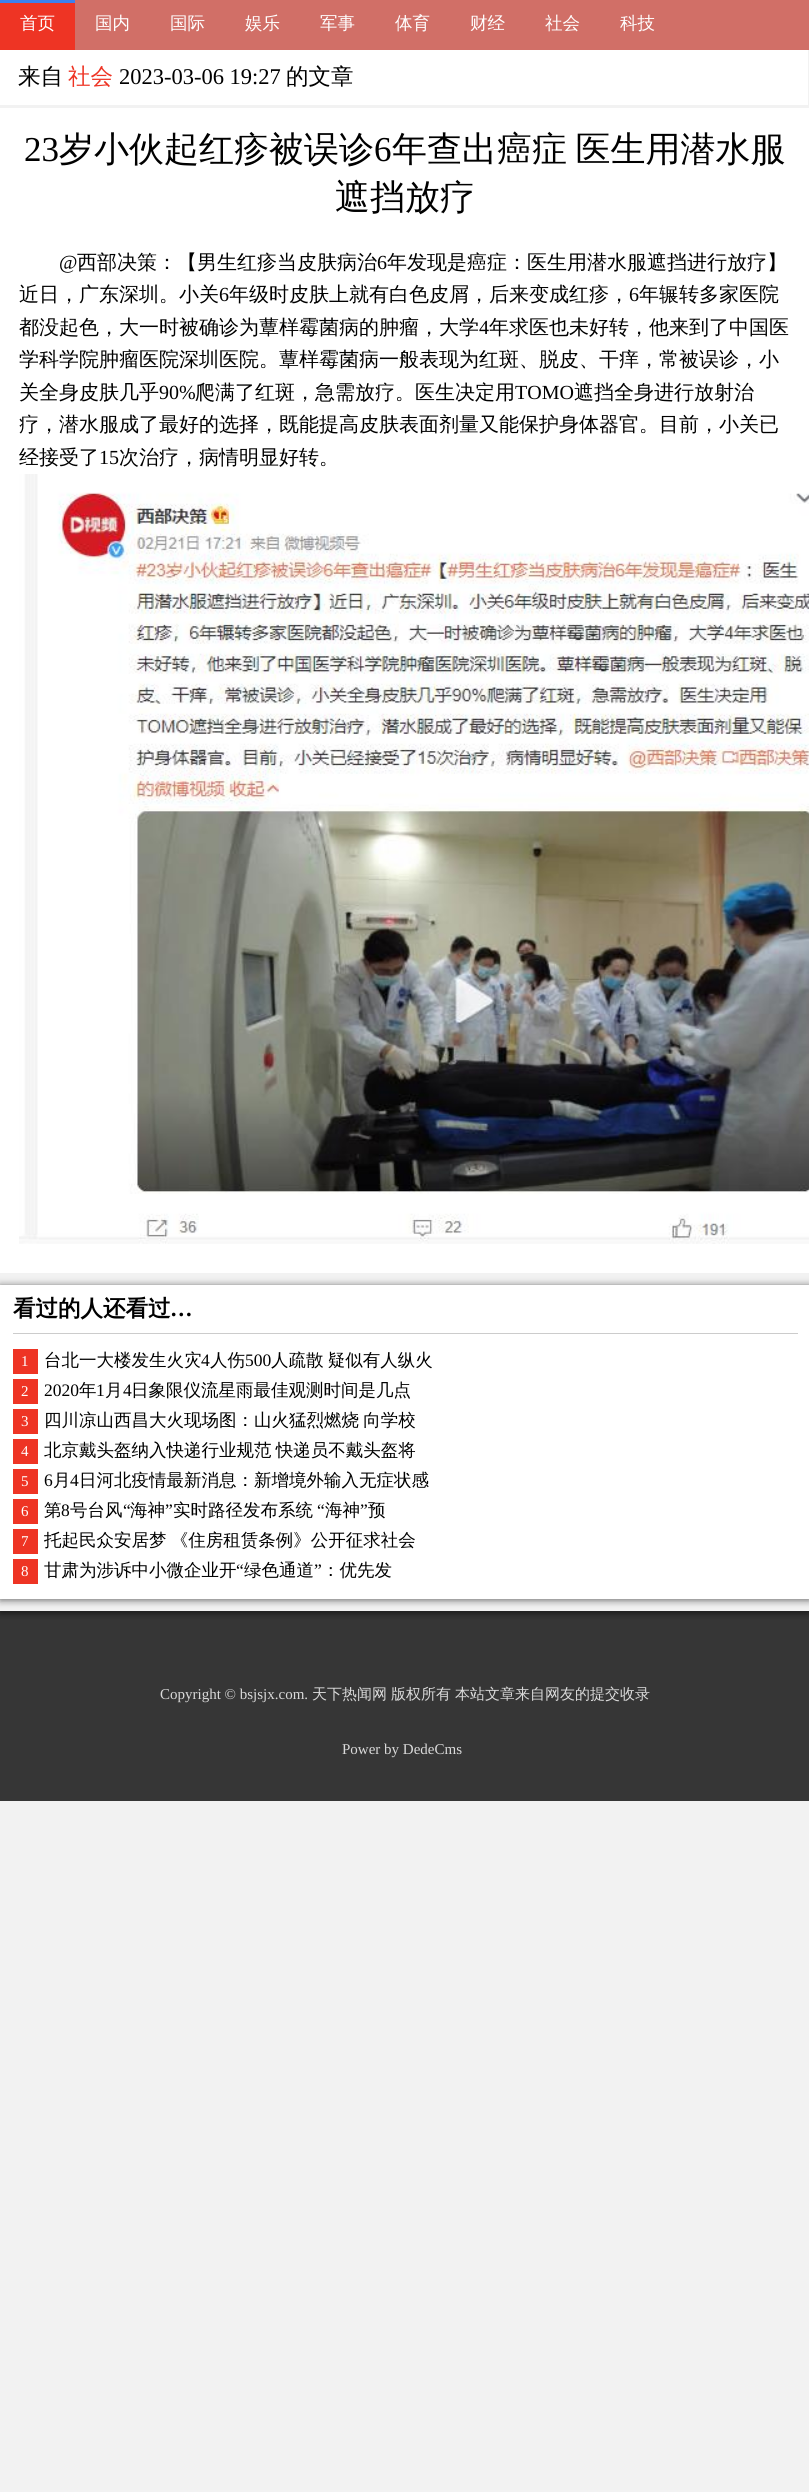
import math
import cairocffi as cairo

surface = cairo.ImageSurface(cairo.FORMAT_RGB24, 809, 2492)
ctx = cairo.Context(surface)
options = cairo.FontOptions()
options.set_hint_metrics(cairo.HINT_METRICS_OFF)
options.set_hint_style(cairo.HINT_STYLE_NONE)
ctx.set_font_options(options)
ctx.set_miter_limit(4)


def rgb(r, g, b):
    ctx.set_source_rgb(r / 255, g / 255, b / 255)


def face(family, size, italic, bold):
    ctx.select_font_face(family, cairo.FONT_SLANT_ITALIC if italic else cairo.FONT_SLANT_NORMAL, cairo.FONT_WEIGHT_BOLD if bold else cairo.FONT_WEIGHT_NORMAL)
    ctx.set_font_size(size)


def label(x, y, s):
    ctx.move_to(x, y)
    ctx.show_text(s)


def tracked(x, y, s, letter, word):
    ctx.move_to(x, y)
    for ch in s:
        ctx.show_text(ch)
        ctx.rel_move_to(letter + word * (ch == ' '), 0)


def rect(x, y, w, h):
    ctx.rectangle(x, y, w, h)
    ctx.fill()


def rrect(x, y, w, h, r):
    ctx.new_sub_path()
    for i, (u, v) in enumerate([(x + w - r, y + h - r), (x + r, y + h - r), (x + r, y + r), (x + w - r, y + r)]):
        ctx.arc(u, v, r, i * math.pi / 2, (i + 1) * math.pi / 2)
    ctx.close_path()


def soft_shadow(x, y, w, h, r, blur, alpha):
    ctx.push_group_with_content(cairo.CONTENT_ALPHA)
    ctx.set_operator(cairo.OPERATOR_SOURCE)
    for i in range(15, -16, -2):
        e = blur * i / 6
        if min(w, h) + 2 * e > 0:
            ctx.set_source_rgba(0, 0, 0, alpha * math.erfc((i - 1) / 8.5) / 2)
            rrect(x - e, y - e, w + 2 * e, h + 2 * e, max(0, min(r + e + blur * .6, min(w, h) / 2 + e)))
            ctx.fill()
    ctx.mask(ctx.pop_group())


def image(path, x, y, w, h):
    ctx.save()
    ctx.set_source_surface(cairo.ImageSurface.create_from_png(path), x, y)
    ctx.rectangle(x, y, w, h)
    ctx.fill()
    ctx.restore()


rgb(242, 242, 242)
ctx.paint()
rgb(54, 54, 54)
rect(0, 1611, 809, 190)
ctx.save()
ctx.rectangle(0, 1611, 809, 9)
ctx.clip()
rgb(0, 0, 0)
soft_shadow(0, 1, 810, 1612, 0, 4, 0.6)
ctx.restore()
rgb(209, 111, 103)
rect(75, 0, 734, 50)
rgb(238, 52, 36)
rect(0, 3, 75, 47)
rgb(59, 128, 238)
rect(0, 0, 75, 3)
face('WenQuanYi Zen Hei Medium', 17.5, 0, 0)
rgb(255, 255, 255)
label(20, 29, '首页')
label(95, 29, '国内')
label(170, 29, '国际')
label(245, 29, '娱乐')
label(320, 29, '军事')
label(395, 29, '体育')
label(470, 29, '财经')
label(545, 29, '社会')
label(620, 29, '科技')
rect(0, 50, 808, 55)
face('WenQuanYi Zen Hei Medium', 22.5, 0, 0)
rgb(0, 0, 0)
label(18, 84, '来自')
rgb(238, 52, 36)
label(68, 84, '社会')
face('Liberation Serif', 22.5, 0, 0)
rgb(0, 0, 0)
label(119, 84, '2023-03-06 19:27')
face('WenQuanYi Zen Hei Medium', 22.5, 0, 0)
label(286, 84, '的文章')
rgb(255, 255, 255)
rect(0, 108, 809, 1165)
face('Liberation Serif', 35, 0, 0)
rgb(0, 0, 0)
label(24, 161, '23')
face('WenQuanYi Zen Hei Medium', 35, 0, 0)
label(59, 161, '岁小伙起红疹被误诊')
face('Liberation Serif', 35, 0, 0)
label(374, 161, '6')
face('WenQuanYi Zen Hei Medium', 35, 0, 0)
tracked(392, 161, '年查出癌症 医生用潜水服', 0, -2)
label(335, 209, '遮挡放疗')
face('Liberation Serif', 20, 0, 0)
label(59, 269, '@')
face('WenQuanYi Zen Hei Medium', 20, 0, 0)
label(77, 269, '西部决策：【男生红疹当皮肤病治')
face('Liberation Serif', 20, 0, 0)
label(377, 269, '6')
face('WenQuanYi Zen Hei Medium', 20, 0, 0)
label(387, 269, '年发现是癌症：医生用潜水服遮挡进行放疗】')
label(19, 301, '近日，广东深圳。小关')
face('Liberation Serif', 20, 0, 0)
label(219, 301, '6')
face('WenQuanYi Zen Hei Medium', 20, 0, 0)
label(229, 301, '年级时皮肤上就有白色皮屑，后来变成红疹，')
face('Liberation Serif', 20, 0, 0)
label(629, 301, '6')
face('WenQuanYi Zen Hei Medium', 20, 0, 0)
label(639, 301, '年辗转多家医院')
label(19, 334, '都没起色，大一时被确诊为蕈样霉菌病的肿瘤，大学')
face('Liberation Serif', 20, 0, 0)
label(479, 334, '4')
face('WenQuanYi Zen Hei Medium', 20, 0, 0)
label(489, 334, '年求医也未好转，他来到了中国医')
label(19, 366, '学科学院肿瘤医院深圳医院。蕈样霉菌病一般表现为红斑、脱皮、干痒，常被误诊，小')
label(19, 399, '关全身皮肤几乎')
face('Liberation Serif', 20, 0, 0)
label(159, 399, '90%')
face('WenQuanYi Zen Hei Medium', 20, 0, 0)
label(195, 399, '爬满了红斑，急需放疗。医生决定用')
face('Liberation Serif', 20, 0, 0)
label(515, 399, 'TOMO')
face('WenQuanYi Zen Hei Medium', 20, 0, 0)
label(574, 399, '遮挡全身进行放射治')
label(19, 431, '疗，潜水服成了最好的选择，既能提高皮肤表面剂量又能保护身体器官。目前，小关已')
label(19, 464, '经接受了')
face('Liberation Serif', 20, 0, 0)
label(99, 464, '15')
face('WenQuanYi Zen Hei Medium', 20, 0, 0)
label(119, 464, '次治疗，病情明显好转。')
image('image0.png', 19, 474, 790, 770)
rgb(0, 0, 0)
soft_shadow(0, 1286, 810, 314, 0, 4, 0.6)
rgb(255, 255, 255)
rect(0, 1285, 809, 314)
rgb(204, 204, 204)
rect(13, 1333, 785, 1)
face('WenQuanYi Zen Hei', 22.5, 0, 1)
rgb(0, 0, 0)
label(13, 1316, '看过的人还看过')
face('Liberation Serif', 22.5, 0, 1)
label(170, 1316, '…')
rgb(238, 52, 36)
rect(13, 1349, 25, 25)
face('Liberation Serif', 15, 0, 0)
rgb(255, 255, 255)
label(21, 1366, '1')
face('WenQuanYi Zen Hei Medium', 17.5, 0, 0)
rgb(0, 0, 0)
label(44, 1366, '台北一大楼发生火灾')
face('Liberation Serif', 17.5, 0, 0)
label(201, 1366, '4')
face('WenQuanYi Zen Hei Medium', 17.5, 0, 0)
label(210, 1366, '人伤')
face('Liberation Serif', 17.5, 0, 0)
label(245, 1366, '500')
face('WenQuanYi Zen Hei Medium', 17.5, 0, 0)
tracked(271, 1366, '人疏散 疑似有人纵火', 0, -1)
rgb(238, 52, 36)
rect(13, 1379, 25, 25)
face('Liberation Serif', 15, 0, 0)
rgb(255, 255, 255)
label(21, 1396, '2')
face('Liberation Serif', 17.5, 0, 0)
rgb(0, 0, 0)
label(44, 1396, '2020')
face('WenQuanYi Zen Hei Medium', 17.5, 0, 0)
label(79, 1396, '年')
face('Liberation Serif', 17.5, 0, 0)
label(96, 1396, '1')
face('WenQuanYi Zen Hei Medium', 17.5, 0, 0)
label(105, 1396, '月')
face('Liberation Serif', 17.5, 0, 0)
label(123, 1396, '4')
face('WenQuanYi Zen Hei Medium', 17.5, 0, 0)
label(131, 1396, '日象限仪流星雨最佳观测时间是几点')
rgb(238, 52, 36)
rect(13, 1409, 25, 25)
face('Liberation Serif', 15, 0, 0)
rgb(255, 255, 255)
label(21, 1426, '3')
face('WenQuanYi Zen Hei Medium', 17.5, 0, 0)
rgb(0, 0, 0)
tracked(44, 1426, '四川凉山西昌大火现场图：山火猛烈燃烧 向学校', 0, -1)
rgb(238, 52, 36)
rect(13, 1439, 25, 25)
face('Liberation Serif', 15, 0, 0)
rgb(255, 255, 255)
label(21, 1456, '4')
face('WenQuanYi Zen Hei Medium', 17.5, 0, 0)
rgb(0, 0, 0)
tracked(44, 1456, '北京戴头盔纳入快递行业规范 快递员不戴头盔将', 0, -1)
rgb(238, 52, 36)
rect(13, 1469, 25, 25)
face('Liberation Serif', 15, 0, 0)
rgb(255, 255, 255)
label(21, 1486, '5')
face('Liberation Serif', 17.5, 0, 0)
rgb(0, 0, 0)
label(44, 1486, '6')
face('WenQuanYi Zen Hei Medium', 17.5, 0, 0)
label(53, 1486, '月')
face('Liberation Serif', 17.5, 0, 0)
label(70, 1486, '4')
face('WenQuanYi Zen Hei Medium', 17.5, 0, 0)
label(79, 1486, '日河北疫情最新消息：新增境外输入无症状感')
rgb(238, 52, 36)
rect(13, 1499, 25, 25)
face('Liberation Serif', 15, 0, 0)
rgb(255, 255, 255)
label(21, 1516, '6')
face('WenQuanYi Zen Hei Medium', 17.5, 0, 0)
rgb(0, 0, 0)
label(44, 1516, '第')
face('Liberation Serif', 17.5, 0, 0)
label(61, 1516, '8')
face('WenQuanYi Zen Hei Medium', 17.5, 0, 0)
label(70, 1516, '号台风')
face('Liberation Serif', 17.5, 0, 0)
label(123, 1516, '“')
face('WenQuanYi Zen Hei Medium', 17.5, 0, 0)
label(130, 1516, '海神')
face('Liberation Serif', 17.5, 0, 0)
label(165, 1516, '”')
face('WenQuanYi Zen Hei Medium', 17.5, 0, 0)
label(173, 1516, '实时路径发布系统')
face('Liberation Serif', 17.5, 0, 0)
label(317, 1516, '“')
face('WenQuanYi Zen Hei Medium', 17.5, 0, 0)
label(325, 1516, '海神')
face('Liberation Serif', 17.5, 0, 0)
label(360, 1516, '”')
face('WenQuanYi Zen Hei Medium', 17.5, 0, 0)
label(368, 1516, '预')
rgb(238, 52, 36)
rect(13, 1529, 25, 25)
face('Liberation Serif', 15, 0, 0)
rgb(255, 255, 255)
label(21, 1546, '7')
face('WenQuanYi Zen Hei Medium', 17.5, 0, 0)
rgb(0, 0, 0)
tracked(44, 1546, '托起民众安居梦 《住房租赁条例》公开征求社会', 0, -1)
rgb(238, 52, 36)
rect(13, 1559, 25, 25)
face('Liberation Serif', 15, 0, 0)
rgb(255, 255, 255)
label(21, 1576, '8')
face('WenQuanYi Zen Hei Medium', 17.5, 0, 0)
rgb(0, 0, 0)
label(44, 1576, '甘肃为涉诉中小微企业开')
face('Liberation Serif', 17.5, 0, 0)
label(236, 1576, '“')
face('WenQuanYi Zen Hei Medium', 17.5, 0, 0)
label(244, 1576, '绿色通道')
face('Liberation Serif', 17.5, 0, 0)
label(314, 1576, '”')
face('WenQuanYi Zen Hei Medium', 17.5, 0, 0)
label(322, 1576, '：优先发')
face('Liberation Serif', 15, 0, 0)
rgb(218, 218, 218)
label(160, 1699, 'Copyright © bsjsjx.com.')
face('WenQuanYi Zen Hei Medium', 15, 0, 0)
label(312, 1699, '天下热闻网')
label(391, 1699, '版权所有')
label(455, 1699, '本站文章来自网友的提交收录')
face('Liberation Serif', 15, 0, 0)
label(342, 1754, 'Power by DedeCms')
surface.write_to_png('render.png')
